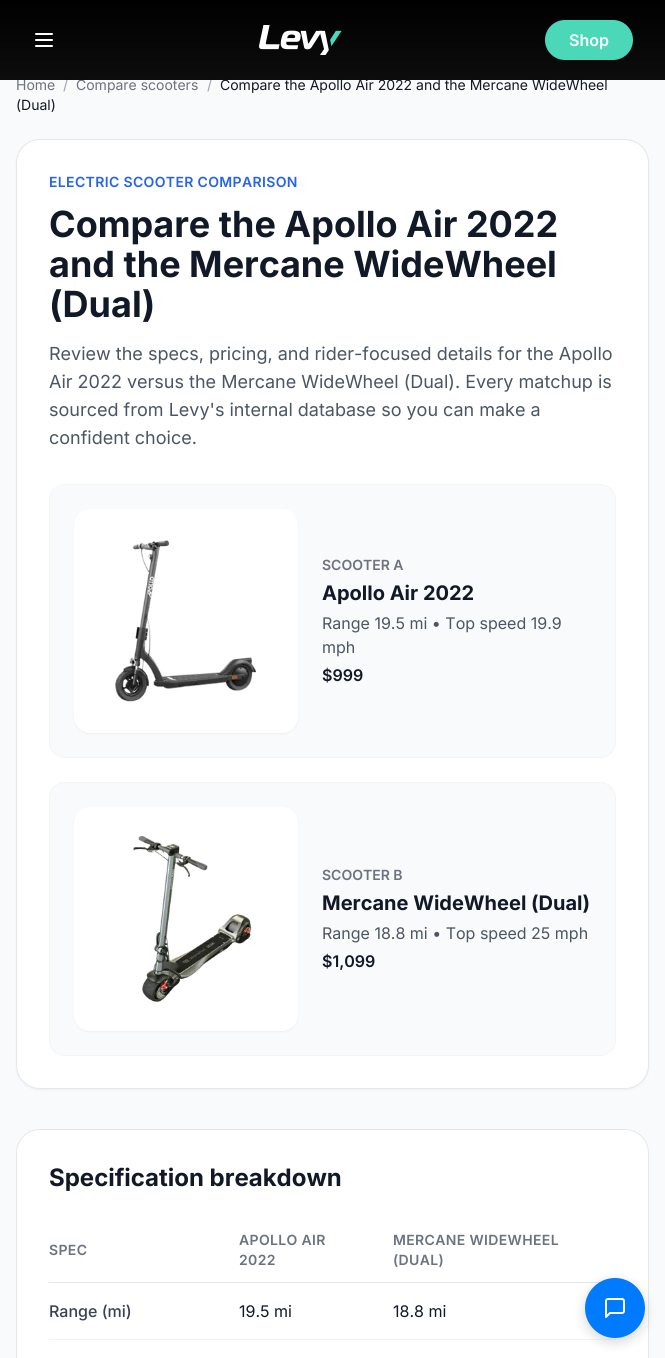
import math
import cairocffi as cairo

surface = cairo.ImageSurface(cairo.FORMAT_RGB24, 665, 1358)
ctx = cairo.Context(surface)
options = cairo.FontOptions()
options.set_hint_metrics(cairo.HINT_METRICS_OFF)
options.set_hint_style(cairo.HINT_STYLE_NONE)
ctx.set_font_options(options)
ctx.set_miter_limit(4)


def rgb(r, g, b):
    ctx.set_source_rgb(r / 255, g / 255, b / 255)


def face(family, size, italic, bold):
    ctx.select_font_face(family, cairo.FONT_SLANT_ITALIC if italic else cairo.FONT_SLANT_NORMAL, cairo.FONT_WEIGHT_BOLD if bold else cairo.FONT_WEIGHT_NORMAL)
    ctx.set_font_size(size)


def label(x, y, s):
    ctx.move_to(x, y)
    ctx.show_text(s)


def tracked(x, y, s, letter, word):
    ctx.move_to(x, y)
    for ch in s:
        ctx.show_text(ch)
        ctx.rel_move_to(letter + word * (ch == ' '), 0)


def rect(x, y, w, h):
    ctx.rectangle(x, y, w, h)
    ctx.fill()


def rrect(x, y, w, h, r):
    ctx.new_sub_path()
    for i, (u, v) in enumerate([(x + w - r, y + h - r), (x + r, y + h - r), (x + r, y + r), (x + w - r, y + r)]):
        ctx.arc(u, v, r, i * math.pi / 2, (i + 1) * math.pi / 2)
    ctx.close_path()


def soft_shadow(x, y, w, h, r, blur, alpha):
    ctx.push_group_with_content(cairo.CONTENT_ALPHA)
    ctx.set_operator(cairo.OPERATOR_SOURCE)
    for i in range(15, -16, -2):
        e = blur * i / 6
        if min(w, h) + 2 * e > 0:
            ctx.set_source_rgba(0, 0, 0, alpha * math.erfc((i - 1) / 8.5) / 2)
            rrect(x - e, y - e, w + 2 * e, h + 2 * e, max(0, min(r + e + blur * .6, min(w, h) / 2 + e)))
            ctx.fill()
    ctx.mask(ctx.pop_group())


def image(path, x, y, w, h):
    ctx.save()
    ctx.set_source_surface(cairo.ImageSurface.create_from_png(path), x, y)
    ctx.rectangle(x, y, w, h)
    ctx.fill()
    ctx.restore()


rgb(255, 255, 255)
ctx.paint()
rgb(249, 250, 251)
rect(0, 27, 665, 1331)
face('Inter', 14, 0, 0)
rgb(107, 114, 128)
label(16, 90, 'Home')
rgb(156, 163, 175)
label(63, 90, '/')
rgb(107, 114, 128)
label(76, 90, 'Compare scooters')
rgb(156, 163, 175)
label(207, 90, '/')
rgb(17, 24, 39)
label(220, 90, 'Compare the Apollo Air 2022 and the Mercane WideWheel')
gradient = cairo.LinearGradient(333, 0, 333, 80)
gradient.add_color_stop_rgba(0, 0, 0, 0, 1)
gradient.add_color_stop_rgba(1, 0, 0, 0, 0.95)
ctx.set_source(gradient)
rect(0, 0, 665, 80)
ctx.new_path()
ctx.move_to(36, 34)
ctx.line_to(52, 34)
ctx.move_to(36, 40)
ctx.line_to(52, 40)
ctx.move_to(36, 46)
ctx.line_to(52, 46)
rgb(255, 255, 255)
ctx.set_line_cap(cairo.LINE_CAP_ROUND)
ctx.set_line_join(cairo.LINE_JOIN_ROUND)
ctx.stroke()
image('image0.png', 259, 25, 83, 30)
rgb(75, 216, 185)
rrect(545, 20, 88, 40, 20)
ctx.fill()
face('Inter SemiBold', 16, 0, 0)
rgb(255, 255, 255)
label(569, 46, 'Shop')
face('Inter', 14, 0, 0)
rgb(17, 24, 39)
label(16, 110, '(Dual)')
rgb(0, 0, 0)
soft_shadow(16, 140, 633, 950, 24, 1, 0.05)
rgb(255, 255, 255)
rrect(16.5, 139.5, 632, 949, 23.5)
ctx.fill_preserve()
rgb(229, 231, 235)
ctx.set_line_width(1)
ctx.set_line_cap(cairo.LINE_CAP_BUTT)
ctx.set_line_join(cairo.LINE_JOIN_MITER)
ctx.stroke()
face('Inter SemiBold', 14, 0, 0)
rgb(37, 99, 235)
tracked(49, 187, 'ELECTRIC SCOOTER COMPARISON', 0.35, 0)
face('Inter', 36, 0, 1)
rgb(17, 24, 39)
label(49, 237, 'Compare the Apollo Air 2022')
label(49, 277, 'and the Mercane WideWheel')
label(49, 317, '(Dual)')
face('Inter', 18, 0, 0)
rgb(75, 85, 99)
label(49, 360, 'Review the specs, pricing, and rider-focused details for the Apollo')
label(49, 388, 'Air 2022 versus the Mercane WideWheel (Dual). Every matchup is')
label(49, 416, 'sourced from Levy\'s internal database so you can make a')
label(49, 444, 'confident choice.')
rgb(249, 250, 251)
rrect(49.5, 484.5, 566, 273, 15.5)
ctx.fill_preserve()
rgb(243, 244, 246)
ctx.stroke()
rgb(0, 0, 0)
soft_shadow(74, 510, 224, 224, 16, 1, 0.05)
rgb(255, 255, 255)
rrect(74, 509, 224, 224, 16)
ctx.fill()
image('image1.png', 115, 540, 142, 162)
face('Inter SemiBold', 14, 0, 0)
rgb(107, 114, 128)
label(322, 570, 'SCOOTER A')
face('Inter', 20, 0, 1)
rgb(17, 24, 39)
label(322, 600, 'Apollo Air 2022')
face('Inter', 16, 0, 0)
rgb(75, 85, 99)
label(322, 629, 'Range 19.5 mi • Top speed 19.9')
label(322, 653, 'mph')
face('Inter SemiBold', 16, 0, 0)
rgb(17, 24, 39)
label(322, 681, '$999')
rgb(249, 250, 251)
rrect(49.5, 782.5, 566, 273, 15.5)
ctx.fill_preserve()
rgb(243, 244, 246)
ctx.stroke()
rgb(0, 0, 0)
soft_shadow(74, 808, 224, 224, 16, 1, 0.05)
rgb(255, 255, 255)
rrect(74, 807, 224, 224, 16)
ctx.fill()
image('image2.png', 133, 836, 119, 166)
face('Inter SemiBold', 14, 0, 0)
rgb(107, 114, 128)
label(322, 880, 'SCOOTER B')
face('Inter', 20, 0, 1)
rgb(17, 24, 39)
label(322, 910, 'Mercane WideWheel (Dual)')
face('Inter', 16, 0, 0)
rgb(75, 85, 99)
label(322, 939, 'Range 18.8 mi • Top speed 25 mph')
face('Inter SemiBold', 16, 0, 0)
rgb(17, 24, 39)
label(322, 967, '$1,099')
rgb(255, 255, 255)
rrect(16.5, 1129.5, 632, 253, 23.5)
ctx.fill_preserve()
rgb(229, 231, 235)
ctx.stroke()
face('Inter', 24, 0, 1)
rgb(17, 24, 39)
label(49, 1186, 'Specification breakdown')
face('Inter SemiBold', 14, 0, 0)
rgb(107, 114, 128)
tracked(49, 1255, 'SPEC', 0.35, 0)
tracked(239, 1245, 'APOLLO AIR', 0.35, 0)
tracked(239, 1265, '2022', 0.35, 0)
tracked(393, 1245, 'MERCANE WIDEWHEEL', 0.35, 0)
tracked(393, 1265, '(DUAL)', 0.35, 0)
rgb(229, 231, 235)
rect(49, 1282, 551, 1)
face('Inter Medium', 16, 0, 0)
rgb(55, 65, 81)
label(49, 1317, 'Range (mi)')
face('Inter', 16, 0, 0)
rgb(17, 24, 39)
label(239, 1317, '19.5 mi')
label(393, 1317, '18.8 mi')
rgb(243, 244, 246)
rect(49, 1339, 567, 1)
rgb(0, 0, 0)
soft_shadow(585, 1282, 60, 60, 30, 6, 0.15)
rgb(0, 123, 255)
ctx.arc(615, 1308, 30, 0, 2 * math.pi)
ctx.fill()
image('image3.png', 605, 1298, 20, 20)
surface.write_to_png('render.png')
